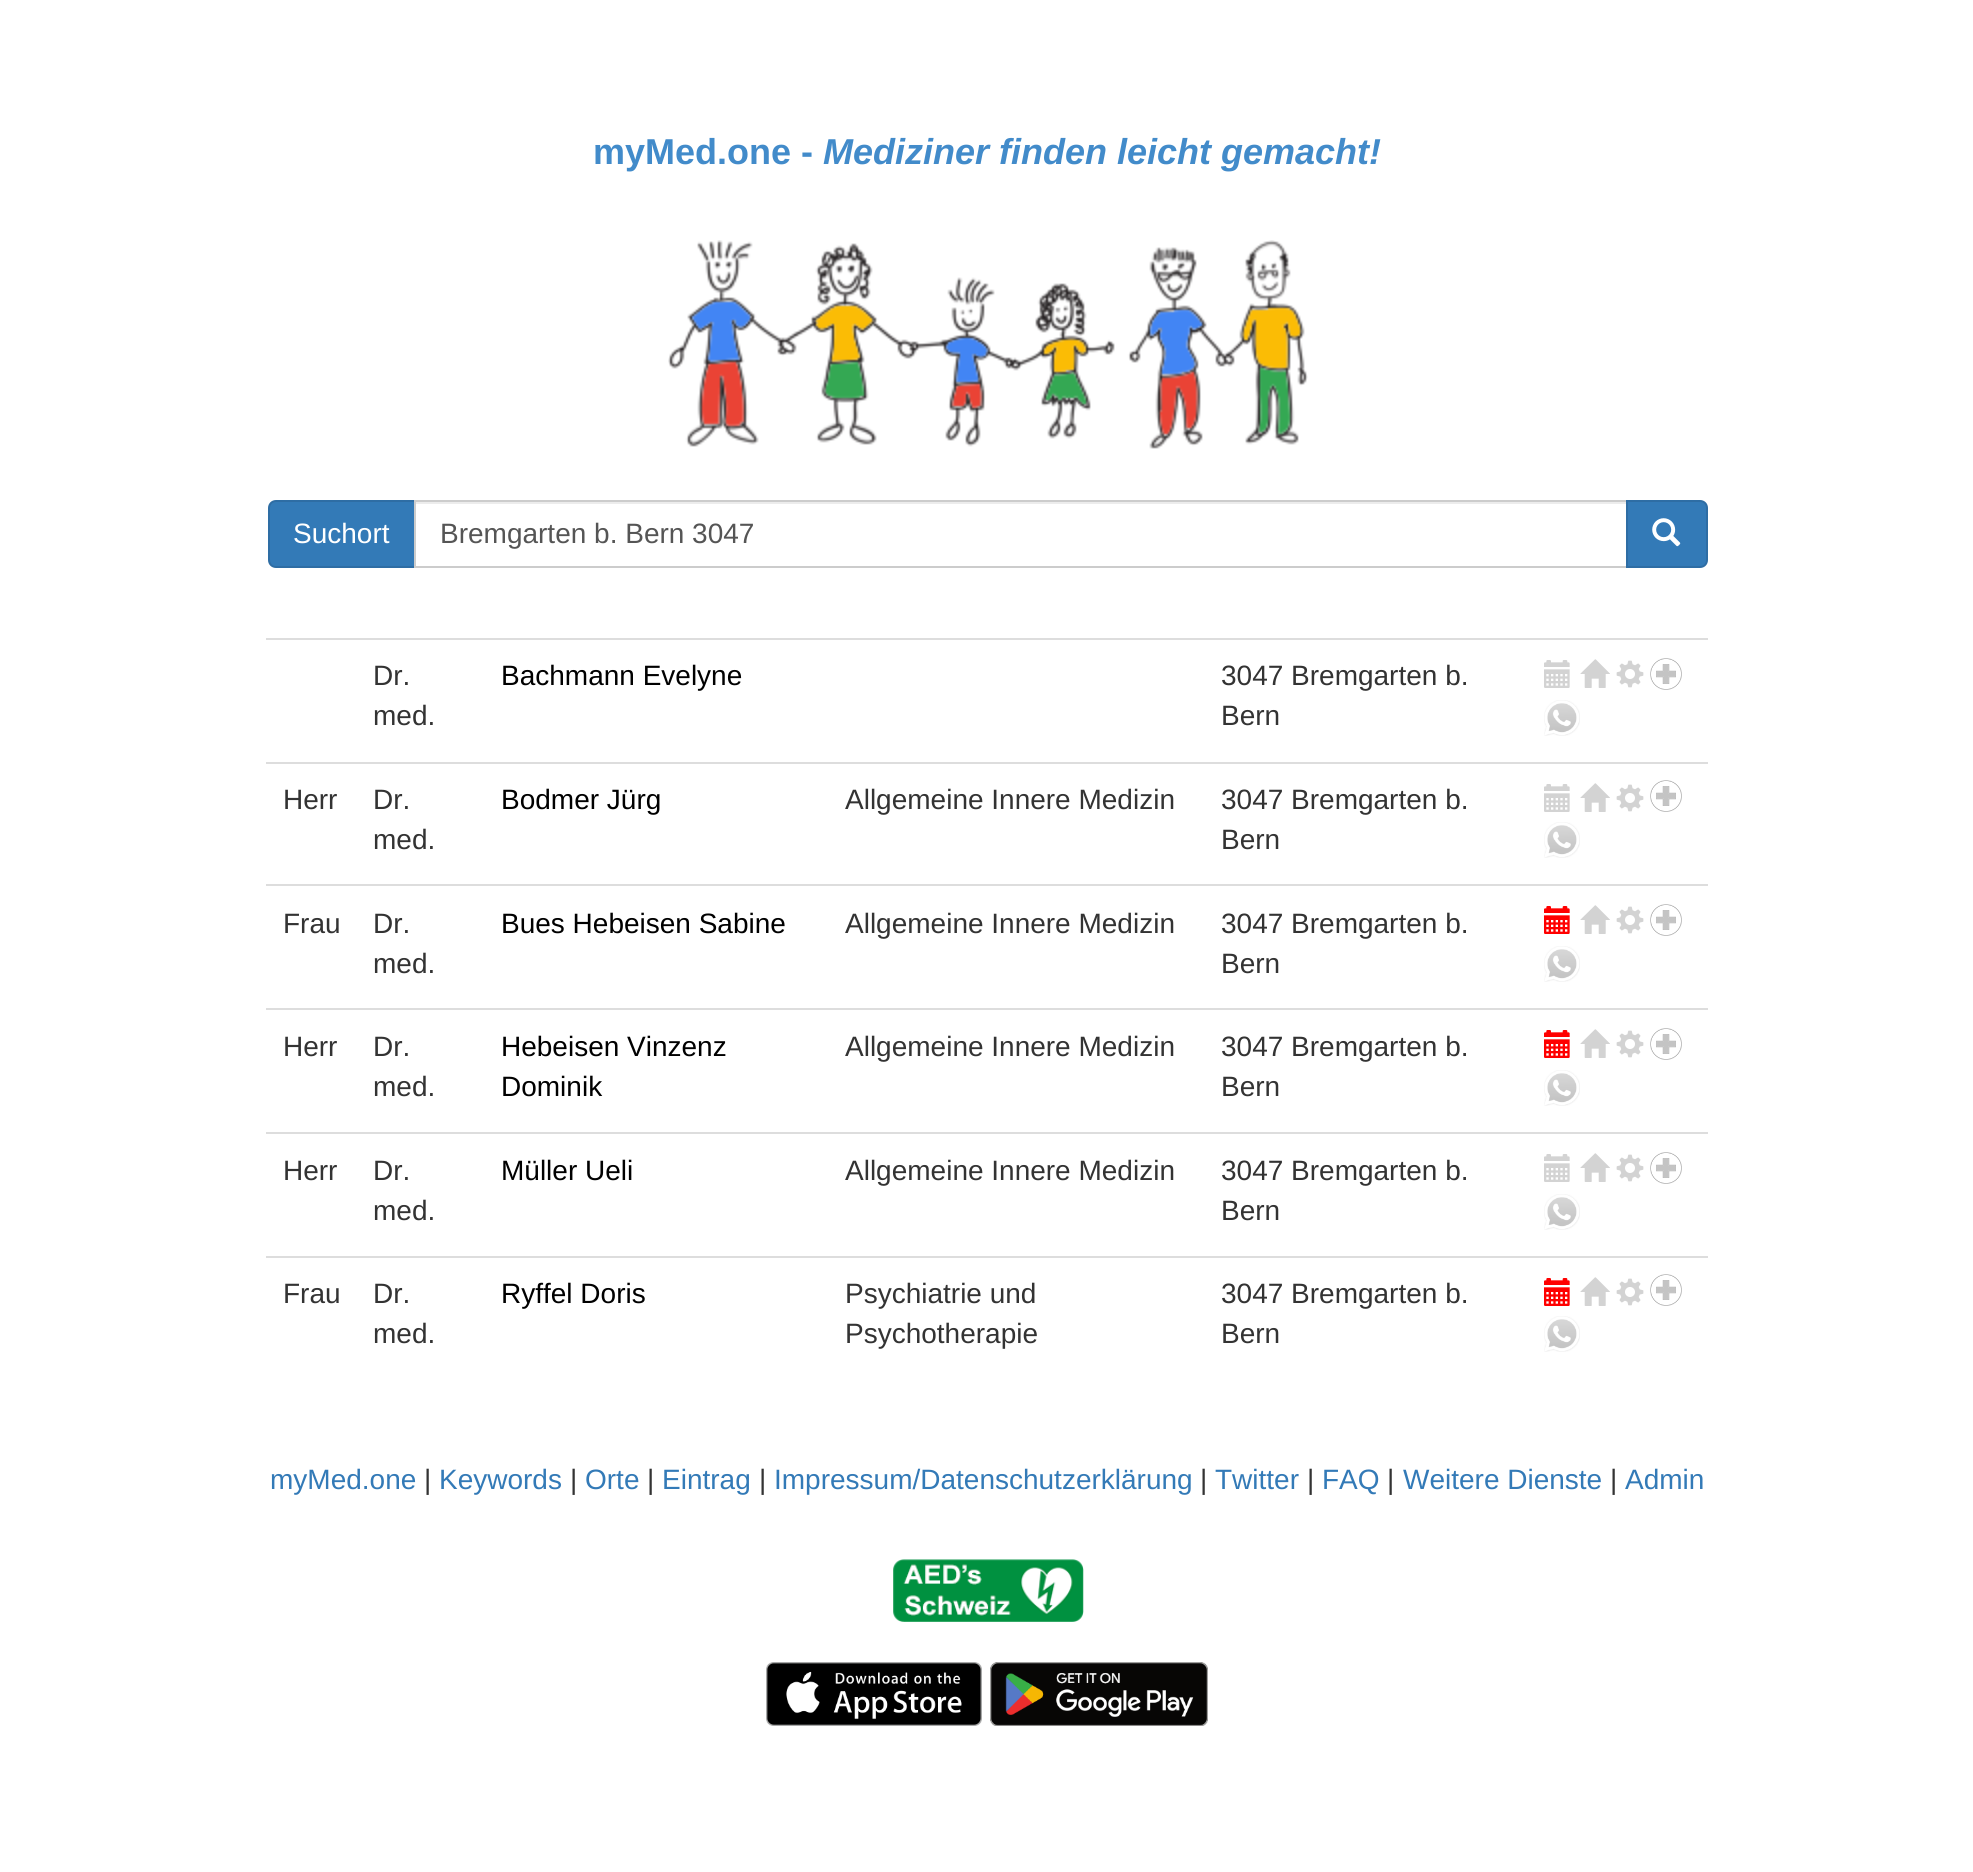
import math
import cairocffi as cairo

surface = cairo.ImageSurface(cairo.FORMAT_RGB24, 1973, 1872)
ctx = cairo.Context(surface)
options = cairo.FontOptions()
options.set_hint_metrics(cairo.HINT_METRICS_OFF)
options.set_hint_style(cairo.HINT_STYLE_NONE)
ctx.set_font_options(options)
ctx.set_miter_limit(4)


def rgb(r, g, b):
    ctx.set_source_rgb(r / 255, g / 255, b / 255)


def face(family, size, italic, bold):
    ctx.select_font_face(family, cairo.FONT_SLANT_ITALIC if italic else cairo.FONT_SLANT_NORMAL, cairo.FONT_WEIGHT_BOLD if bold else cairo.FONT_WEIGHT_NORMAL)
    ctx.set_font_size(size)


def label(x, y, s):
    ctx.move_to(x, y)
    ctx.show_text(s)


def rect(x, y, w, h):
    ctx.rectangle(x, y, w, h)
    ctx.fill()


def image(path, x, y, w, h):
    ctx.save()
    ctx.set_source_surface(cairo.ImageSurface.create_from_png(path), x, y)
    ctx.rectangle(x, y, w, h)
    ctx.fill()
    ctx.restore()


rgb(255, 255, 255)
ctx.paint()
face('Liberation Sans', 36, 0, 1)
rgb(66, 139, 202)
label(593, 164, 'myMed.one -')
face('Liberation Sans', 36, 1, 1)
label(823, 164, 'Mediziner finden leicht gemacht!')
image('image0.png', 668, 240, 640, 209)
rgb(51, 122, 183)
ctx.new_path()
ctx.move_to(276, 501)
ctx.line_to(415, 501)
ctx.line_to(415, 567)
ctx.line_to(276, 567)
ctx.curve_to(272, 567, 269, 564, 269, 560)
ctx.line_to(269, 508)
ctx.curve_to(269, 504, 272, 501, 276, 501)
ctx.close_path()
ctx.fill_preserve()
rgb(46, 109, 164)
ctx.stroke()
face('Liberation Sans', 28, 0, 0)
rgb(255, 255, 255)
label(293, 543, 'Suchort')
rgb(236, 236, 236)
rect(416, 502, 1210, 2)
ctx.rectangle(415, 501, 1212, 66)
rgb(204, 204, 204)
ctx.stroke()
rgb(85, 85, 85)
label(440, 543, 'Bremgarten b. Bern 3047')
rgb(51, 122, 183)
ctx.new_path()
ctx.move_to(1627, 501)
ctx.line_to(1700, 501)
ctx.curve_to(1704, 501, 1707, 504, 1707, 508)
ctx.line_to(1707, 560)
ctx.curve_to(1707, 564, 1704, 567, 1700, 567)
ctx.line_to(1627, 567)
ctx.close_path()
ctx.fill_preserve()
rgb(46, 109, 164)
ctx.stroke()
image('image1.png', 1652, 518, 29, 29)
rgb(221, 221, 221)
rect(266, 638, 1442, 2)
image('image2.png', 1544, 660, 26, 28)
image('image3.png', 1580, 659, 30, 29)
image('image4.png', 1616, 660, 28, 28)
image('image5.png', 1650, 658, 32, 32)
image('image6.png', 1544, 700, 36, 36)
rgb(51, 51, 51)
label(373, 685, 'Dr.')
label(373, 725, 'med.')
rgb(0, 0, 0)
label(501, 685, 'Bachmann Evelyne')
rgb(51, 51, 51)
label(1221, 685, '3047 Bremgarten b.')
label(1221, 725, 'Bern')
rgb(221, 221, 221)
rect(266, 762, 1442, 2)
image('image2.png', 1544, 784, 26, 28)
image('image3.png', 1580, 783, 30, 29)
image('image4.png', 1616, 784, 28, 28)
image('image7.png', 1650, 780, 32, 32)
image('image8.png', 1544, 822, 36, 36)
rgb(51, 51, 51)
label(283, 809, 'Herr')
label(373, 809, 'Dr.')
label(373, 849, 'med.')
rgb(0, 0, 0)
label(501, 809, 'Bodmer Jürg')
rgb(51, 51, 51)
label(845, 809, 'Allgemeine Innere Medizin')
label(1221, 809, '3047 Bremgarten b.')
label(1221, 849, 'Bern')
rgb(221, 221, 221)
rect(266, 884, 1442, 2)
image('image9.png', 1544, 906, 26, 28)
image('image3.png', 1580, 905, 30, 29)
image('image4.png', 1616, 906, 28, 28)
image('image7.png', 1650, 904, 32, 32)
image('image8.png', 1544, 946, 36, 36)
rgb(51, 51, 51)
label(283, 933, 'Frau')
label(373, 933, 'Dr.')
label(373, 973, 'med.')
rgb(0, 0, 0)
label(501, 933, 'Bues Hebeisen Sabine')
rgb(51, 51, 51)
label(845, 933, 'Allgemeine Innere Medizin')
label(1221, 933, '3047 Bremgarten b.')
label(1221, 973, 'Bern')
rgb(221, 221, 221)
rect(266, 1008, 1442, 2)
image('image9.png', 1544, 1030, 26, 28)
image('image3.png', 1580, 1029, 30, 29)
image('image4.png', 1616, 1030, 28, 28)
image('image5.png', 1650, 1028, 32, 32)
image('image6.png', 1544, 1070, 36, 36)
rgb(51, 51, 51)
label(283, 1056, 'Herr')
label(373, 1056, 'Dr.')
label(373, 1096, 'med.')
rgb(0, 0, 0)
label(501, 1056, 'Hebeisen Vinzenz')
label(501, 1096, 'Dominik')
rgb(51, 51, 51)
label(845, 1056, 'Allgemeine Innere Medizin')
label(1221, 1056, '3047 Bremgarten b.')
label(1221, 1096, 'Bern')
rgb(221, 221, 221)
rect(266, 1132, 1442, 2)
image('image2.png', 1544, 1154, 26, 28)
image('image3.png', 1580, 1153, 30, 29)
image('image4.png', 1616, 1154, 28, 28)
image('image5.png', 1650, 1152, 32, 32)
image('image6.png', 1544, 1194, 36, 36)
rgb(51, 51, 51)
label(283, 1180, 'Herr')
label(373, 1180, 'Dr.')
label(373, 1220, 'med.')
rgb(0, 0, 0)
label(501, 1180, 'Müller Ueli')
rgb(51, 51, 51)
label(845, 1180, 'Allgemeine Innere Medizin')
label(1221, 1180, '3047 Bremgarten b.')
label(1221, 1220, 'Bern')
rgb(221, 221, 221)
rect(266, 1256, 1442, 2)
image('image9.png', 1544, 1278, 26, 28)
image('image3.png', 1580, 1277, 30, 29)
image('image4.png', 1616, 1278, 28, 28)
image('image7.png', 1650, 1274, 32, 32)
image('image8.png', 1544, 1316, 36, 36)
rgb(51, 51, 51)
label(283, 1303, 'Frau')
label(373, 1303, 'Dr.')
label(373, 1343, 'med.')
rgb(0, 0, 0)
label(501, 1303, 'Ryffel Doris')
rgb(51, 51, 51)
label(845, 1303, 'Psychiatrie und')
label(845, 1343, 'Psychotherapie')
label(1221, 1303, '3047 Bremgarten b.')
label(1221, 1343, 'Bern')
rgb(51, 122, 183)
label(270, 1489, 'myMed.one')
rgb(51, 51, 51)
label(424, 1489, '|')
rgb(51, 122, 183)
label(439, 1489, 'Keywords')
rgb(51, 51, 51)
label(570, 1489, '|')
rgb(51, 122, 183)
label(585, 1489, 'Orte')
rgb(51, 51, 51)
label(647, 1489, '|')
rgb(51, 122, 183)
label(662, 1489, 'Eintrag')
rgb(51, 51, 51)
label(759, 1489, '|')
rgb(51, 122, 183)
label(774, 1489, 'Impressum/Datenschutzerklärung')
rgb(51, 51, 51)
label(1200, 1489, '|')
rgb(51, 122, 183)
label(1215, 1489, 'Twitter')
rgb(51, 51, 51)
label(1307, 1489, '|')
rgb(51, 122, 183)
label(1322, 1489, 'FAQ')
rgb(51, 51, 51)
label(1387, 1489, '|')
rgb(51, 122, 183)
label(1403, 1489, 'Weitere Dienste')
rgb(51, 51, 51)
label(1610, 1489, '|')
rgb(51, 122, 183)
label(1625, 1489, 'Admin')
image('image10.png', 893, 1559, 191, 63)
image('image11.png', 766, 1662, 216, 64)
image('image12.png', 990, 1662, 218, 64)
surface.write_to_png('render.png')
